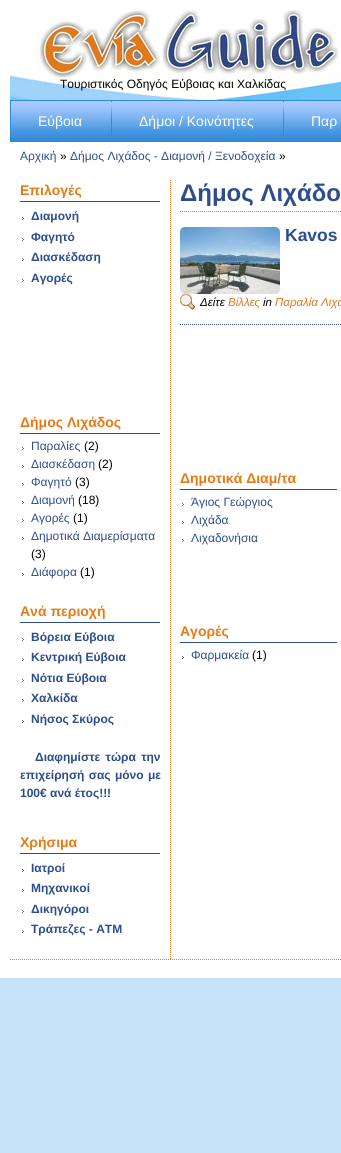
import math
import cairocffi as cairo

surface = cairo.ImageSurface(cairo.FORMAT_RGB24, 341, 1153)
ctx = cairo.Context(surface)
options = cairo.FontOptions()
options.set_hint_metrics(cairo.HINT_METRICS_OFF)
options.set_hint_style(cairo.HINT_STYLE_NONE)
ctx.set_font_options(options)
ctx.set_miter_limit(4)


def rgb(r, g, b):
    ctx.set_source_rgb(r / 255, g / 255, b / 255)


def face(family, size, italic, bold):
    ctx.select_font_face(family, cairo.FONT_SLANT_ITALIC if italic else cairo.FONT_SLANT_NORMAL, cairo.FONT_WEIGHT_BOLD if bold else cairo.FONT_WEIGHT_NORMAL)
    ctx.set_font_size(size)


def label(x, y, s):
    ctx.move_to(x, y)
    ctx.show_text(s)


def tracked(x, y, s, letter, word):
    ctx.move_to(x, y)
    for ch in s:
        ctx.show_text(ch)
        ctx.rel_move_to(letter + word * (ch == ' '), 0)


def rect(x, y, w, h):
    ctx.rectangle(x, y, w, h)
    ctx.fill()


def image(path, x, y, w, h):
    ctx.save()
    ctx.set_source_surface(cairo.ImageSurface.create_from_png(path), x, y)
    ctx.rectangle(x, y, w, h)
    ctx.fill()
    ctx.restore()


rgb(198, 227, 247)
ctx.paint()
rgb(255, 255, 255)
rect(0, 0, 341, 978)
image('image0.png', 10, 74, 331, 26)
image('image1.png', 35, 5, 306, 75)
face('Liberation Sans', 12, 0, 0)
rgb(0, 0, 0)
label(60, 88, 'Τουριστικός Οδηγός Εύβοιας και Χαλκίδας')
image('image2.png', 11, 101, 330, 40)
ctx.rectangle(10.5, 100.5, 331, 41)
rgb(48, 138, 215)
ctx.set_line_width(1)
ctx.stroke()
image('image3.png', 111, 101, 1, 38)
face('Liberation Sans', 14, 0, 0)
rgb(255, 255, 255)
label(38, 126, 'Εύβοια')
image('image3.png', 283, 101, 1, 38)
label(139, 126, 'Δήμοι / Κοινότητες')
label(311, 126, 'Παρ')
face('Liberation Sans', 12, 0, 0)
rgb(45, 77, 141)
label(20, 160, 'Αρχική')
rgb(0, 0, 0)
label(60, 160, '»')
rgb(45, 77, 141)
label(70, 160, 'Δήμος Λιχάδος - Διαμονή / Ξενοδοχεία')
rgb(0, 0, 0)
label(279, 160, '»')
ctx.new_path()
ctx.move_to(170.5, 180)
ctx.line_to(170.5, 959)
rgb(234, 121, 19)
ctx.set_dash([1, 1])
ctx.stroke()
rgb(45, 77, 141)
rect(20, 201, 140, 1)
face('Liberation Sans', 14, 0, 1)
rgb(234, 121, 19)
label(20, 195, 'Επιλογές')
image('image4.png', 22, 217, 2, 3)
face('Liberation Sans', 12, 0, 1)
rgb(45, 77, 141)
label(31, 220, 'Διαμονή')
image('image4.png', 22, 238, 2, 3)
label(31, 241, 'Φαγητό')
image('image4.png', 22, 258, 2, 3)
label(31, 261, 'Διασκέδαση')
image('image4.png', 22, 279, 2, 3)
label(31, 282, 'Αγορές')
rect(20, 433, 140, 1)
face('Liberation Sans', 14, 0, 1)
rgb(234, 121, 19)
label(20, 427, 'Δήμος Λιχάδος')
image('image4.png', 22, 447, 2, 3)
face('Liberation Sans', 12, 0, 0)
rgb(45, 77, 141)
label(31, 450, 'Παραλίες')
rgb(0, 0, 0)
label(84, 450, '(2)')
image('image4.png', 22, 465, 2, 3)
rgb(45, 77, 141)
label(31, 468, 'Διασκέδαση')
rgb(0, 0, 0)
label(98, 468, '(2)')
image('image4.png', 22, 483, 2, 3)
rgb(45, 77, 141)
label(31, 486, 'Φαγητό')
rgb(0, 0, 0)
label(75, 486, '(3)')
image('image4.png', 22, 501, 2, 3)
rgb(45, 77, 141)
label(31, 504, 'Διαμονή')
rgb(0, 0, 0)
label(78, 504, '(18)')
image('image4.png', 22, 519, 2, 3)
rgb(45, 77, 141)
label(31, 522, 'Αγορές')
rgb(0, 0, 0)
label(73, 522, '(1)')
image('image4.png', 22, 537, 2, 3)
rgb(45, 77, 141)
label(31, 540, 'Δημοτικά Διαμερίσματα')
rgb(0, 0, 0)
label(31, 558, '(3)')
image('image4.png', 22, 573, 2, 3)
rgb(45, 77, 141)
label(31, 576, 'Διάφορα')
rgb(0, 0, 0)
label(80, 576, '(1)')
rgb(45, 77, 141)
rect(20, 622, 140, 1)
face('Liberation Sans', 14, 0, 1)
rgb(234, 121, 19)
label(20, 616, 'Ανά περιοχή')
image('image4.png', 22, 638, 2, 3)
face('Liberation Sans', 12, 0, 1)
rgb(45, 77, 141)
label(31, 641, 'Βόρεια Εύβοια')
image('image4.png', 22, 658, 2, 3)
label(31, 661, 'Κεντρική Εύβοια')
image('image4.png', 22, 679, 2, 3)
label(31, 682, 'Νότια Εύβοια')
image('image4.png', 22, 699, 2, 3)
label(31, 702, 'Χαλκίδα')
image('image4.png', 22, 720, 2, 3)
label(31, 723, 'Νήσος Σκύρος')
tracked(35, 761, 'Διαφημίστε τώρα την', 0, 2)
tracked(20, 779, 'επιχείρησή σας μόνο με', 0, 1)
label(20, 797, '100€ ανά έτος!!!')
rect(20, 853, 140, 1)
face('Liberation Sans', 14, 0, 1)
rgb(234, 121, 19)
label(20, 847, 'Χρήσιμα')
image('image4.png', 22, 869, 2, 3)
face('Liberation Sans', 12, 0, 1)
rgb(45, 77, 141)
label(31, 872, 'Ιατροί')
image('image4.png', 22, 889, 2, 3)
label(31, 892, 'Μηχανικοί')
image('image4.png', 22, 910, 2, 3)
label(31, 913, 'Δικηγόροι')
image('image4.png', 22, 930, 2, 3)
label(31, 933, 'Τράπεζες - ΑΤΜ')
ctx.new_path()
ctx.move_to(180, 211.5)
ctx.line_to(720, 211.5)
rgb(234, 121, 19)
ctx.stroke()
face('Liberation Sans', 24, 0, 1)
rgb(45, 77, 141)
label(180, 201, 'Δήμος Λιχάδο')
ctx.new_path()
ctx.move_to(180, 324.5)
ctx.line_to(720, 324.5)
ctx.stroke()
image('image5.png', 180, 227, 100, 67)
face('Liberation Sans', 17.5, 0, 1)
label(285, 241, 'Kavos')
image('image6.png', 180, 294, 16, 16)
face('Liberation Sans', 11.5, 1, 0)
rgb(0, 0, 0)
label(200, 306, 'Δείτε')
rgb(225, 119, 30)
label(228, 306, 'Βίλλες')
rgb(0, 0, 0)
label(263, 306, 'in')
rgb(225, 119, 30)
label(275, 306, 'Παραλία Λιχά')
rgb(45, 77, 141)
rect(180, 489, 157, 1)
face('Liberation Sans', 14, 0, 1)
rgb(234, 121, 19)
label(180, 483, 'Δημοτικά Διαμ/τα')
image('image4.png', 182, 503, 2, 3)
face('Liberation Sans', 12, 0, 0)
rgb(45, 77, 141)
label(191, 506, 'Άγιος Γεώργιος')
image('image4.png', 182, 521, 2, 3)
label(191, 524, 'Λιχάδα')
image('image4.png', 182, 539, 2, 3)
label(191, 542, 'Λιχαδονήσια')
rect(180, 642, 157, 1)
face('Liberation Sans', 14, 0, 1)
rgb(234, 121, 19)
label(180, 636, 'Αγορές')
image('image4.png', 182, 656, 2, 3)
face('Liberation Sans', 12, 0, 0)
rgb(45, 77, 141)
label(191, 659, 'Φαρμακεία')
rgb(0, 0, 0)
label(252, 659, '(1)')
ctx.new_path()
ctx.move_to(10, 959.5)
ctx.line_to(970, 959.5)
rgb(234, 121, 19)
ctx.stroke()
surface.write_to_png('render.png')
